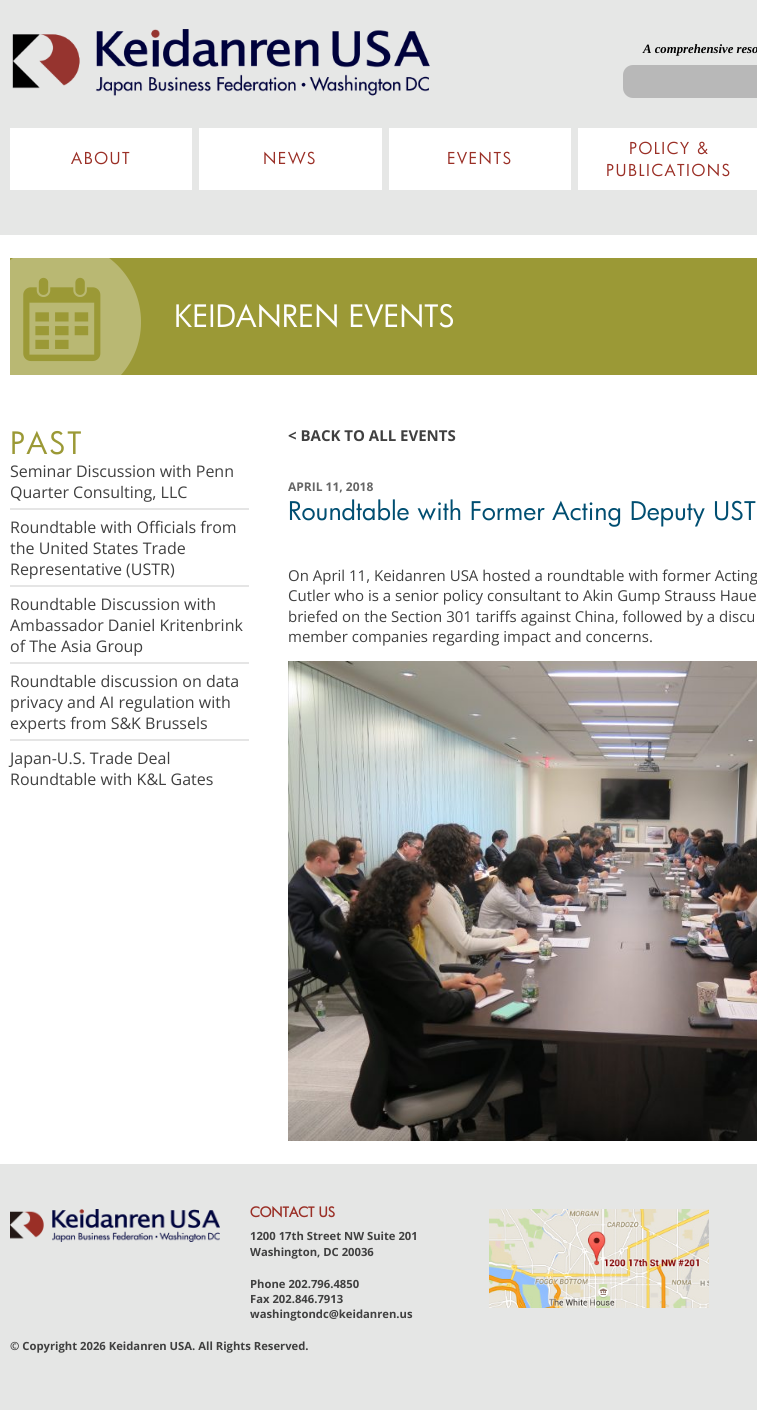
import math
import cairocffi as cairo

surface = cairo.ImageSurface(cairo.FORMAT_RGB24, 757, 1410)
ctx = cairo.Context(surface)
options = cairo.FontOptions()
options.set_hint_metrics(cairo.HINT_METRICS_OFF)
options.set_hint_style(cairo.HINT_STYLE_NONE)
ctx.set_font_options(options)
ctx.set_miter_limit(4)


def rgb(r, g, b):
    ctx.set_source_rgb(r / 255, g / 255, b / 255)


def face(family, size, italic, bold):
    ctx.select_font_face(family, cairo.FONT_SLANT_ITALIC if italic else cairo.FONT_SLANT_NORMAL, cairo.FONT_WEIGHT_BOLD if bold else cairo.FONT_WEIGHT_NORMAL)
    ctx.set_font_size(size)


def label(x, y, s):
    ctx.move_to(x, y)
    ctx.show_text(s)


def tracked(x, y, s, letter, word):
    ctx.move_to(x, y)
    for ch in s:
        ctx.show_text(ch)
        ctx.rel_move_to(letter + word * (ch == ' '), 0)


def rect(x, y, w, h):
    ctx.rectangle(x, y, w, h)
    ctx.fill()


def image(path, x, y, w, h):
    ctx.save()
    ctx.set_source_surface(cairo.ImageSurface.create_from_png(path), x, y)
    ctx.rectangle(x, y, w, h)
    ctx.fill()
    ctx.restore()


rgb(255, 255, 255)
ctx.paint()
rgb(230, 231, 230)
rect(0, 0, 757, 235)
image('image0.png', 12, 29, 418, 67)
face('Liberation Serif', 12.75, 1, 1)
rgb(0, 0, 0)
label(643, 53, 'A comprehensive reso')
rgb(184, 184, 184)
ctx.new_path()
ctx.move_to(633, 65)
ctx.line_to(757, 65)
ctx.line_to(757, 98)
ctx.line_to(633, 98)
ctx.curve_to(627.5, 98, 623, 93.5, 623, 88)
ctx.line_to(623, 75)
ctx.curve_to(623, 69.5, 627.5, 65, 633, 65)
ctx.close_path()
ctx.fill()
rgb(255, 255, 255)
rect(10, 128, 182, 62)
face('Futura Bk', 16, 0, 0)
rgb(154, 47, 38)
tracked(71, 164, 'ABOUT', 1.5, 0)
rgb(255, 255, 255)
rect(199, 128, 183, 62)
rgb(154, 47, 38)
tracked(263, 164, 'NEWS', 1.5, 0)
rgb(255, 255, 255)
rect(389, 128, 182, 62)
rgb(154, 47, 38)
tracked(447, 164, 'EVENTS', 1.5, 0)
rgb(255, 255, 255)
rect(578, 128, 179, 62)
rgb(154, 47, 38)
tracked(629, 154, 'POLICY &', 1.5, 0)
tracked(606, 176, 'PUBLICATIONS', 1.5, 0)
rgb(155, 153, 54)
rect(10, 258, 747, 117)
image('image1.png', 10, 258, 131, 117)
face('Futura Bk', 30, 0, 0)
rgb(255, 255, 255)
label(174, 327, 'KEIDANREN EVENTS')
rgb(155, 153, 54)
tracked(10, 454, 'PAST', 1.5, 0)
rgb(229, 229, 229)
rect(10, 508, 239, 2)
face('Open Sans', 16, 0, 0)
rgb(64, 64, 64)
label(10, 477, 'Seminar Discussion with Penn')
label(10, 498, 'Quarter Consulting, LLC')
rgb(229, 229, 229)
rect(10, 585, 239, 2)
rgb(64, 64, 64)
label(10, 533, 'Roundtable with Officials from')
label(10, 554, 'the United States Trade')
label(10, 575, 'Representative (USTR)')
rgb(229, 229, 229)
rect(10, 662, 239, 2)
rgb(64, 64, 64)
label(10, 610, 'Roundtable Discussion with')
label(10, 631, 'Ambassador Daniel Kritenbrink')
label(10, 652, 'of The Asia Group')
rgb(229, 229, 229)
rect(10, 739, 239, 2)
rgb(64, 64, 64)
label(10, 687, 'Roundtable discussion on data')
label(10, 708, 'privacy and AI regulation with')
label(10, 729, 'experts from S&K Brussels')
label(10, 764, 'Japan-U.S. Trade Deal')
label(10, 785, 'Roundtable with K&L Gates')
face('Open Sans', 15, 0, 1)
label(288, 441, '< BACK TO ALL EVENTS')
face('Open Sans', 12, 0, 1)
rgb(102, 102, 102)
label(288, 491, 'APRIL 11, 2018')
face('Futura Bk', 25, 0, 0)
rgb(0, 78, 113)
label(288, 520, 'Roundtable with Former Acting Deputy UST')
face('Open Sans', 15, 0, 0)
rgb(64, 64, 64)
label(288, 581, 'On April 11, Keidanren USA hosted a roundtable with former Acting')
label(288, 601, 'Cutler who is a senior policy consultant to Akin Gump Strauss Haue')
label(288, 622, 'briefed on the Section 301 tariffs against China, followed by a discu')
label(288, 642, 'member companies regarding impact and concerns.')
image('image2.png', 288, 661, 469, 480)
rgb(229, 230, 229)
rect(0, 1164, 757, 246)
image('image3.png', 10, 1209, 210, 33)
face('Futura Bk', 13.5, 0, 1)
rgb(154, 47, 38)
label(250, 1217, 'CONTACT US')
face('Open Sans', 11.25, 0, 1)
rgb(64, 64, 64)
label(250, 1240, '1200 17th Street NW Suite 201')
label(250, 1256, 'Washington, DC 20036')
label(250, 1288, 'Phone 202.796.4850')
label(250, 1303, 'Fax 202.846.7913')
label(250, 1318, 'washingtondc@keidanren.us')
image('image4.png', 489, 1209, 220, 99)
label(10, 1350, '© Copyright 2026 Keidanren USA. All Rights Reserved.')
surface.write_to_png('render.png')
